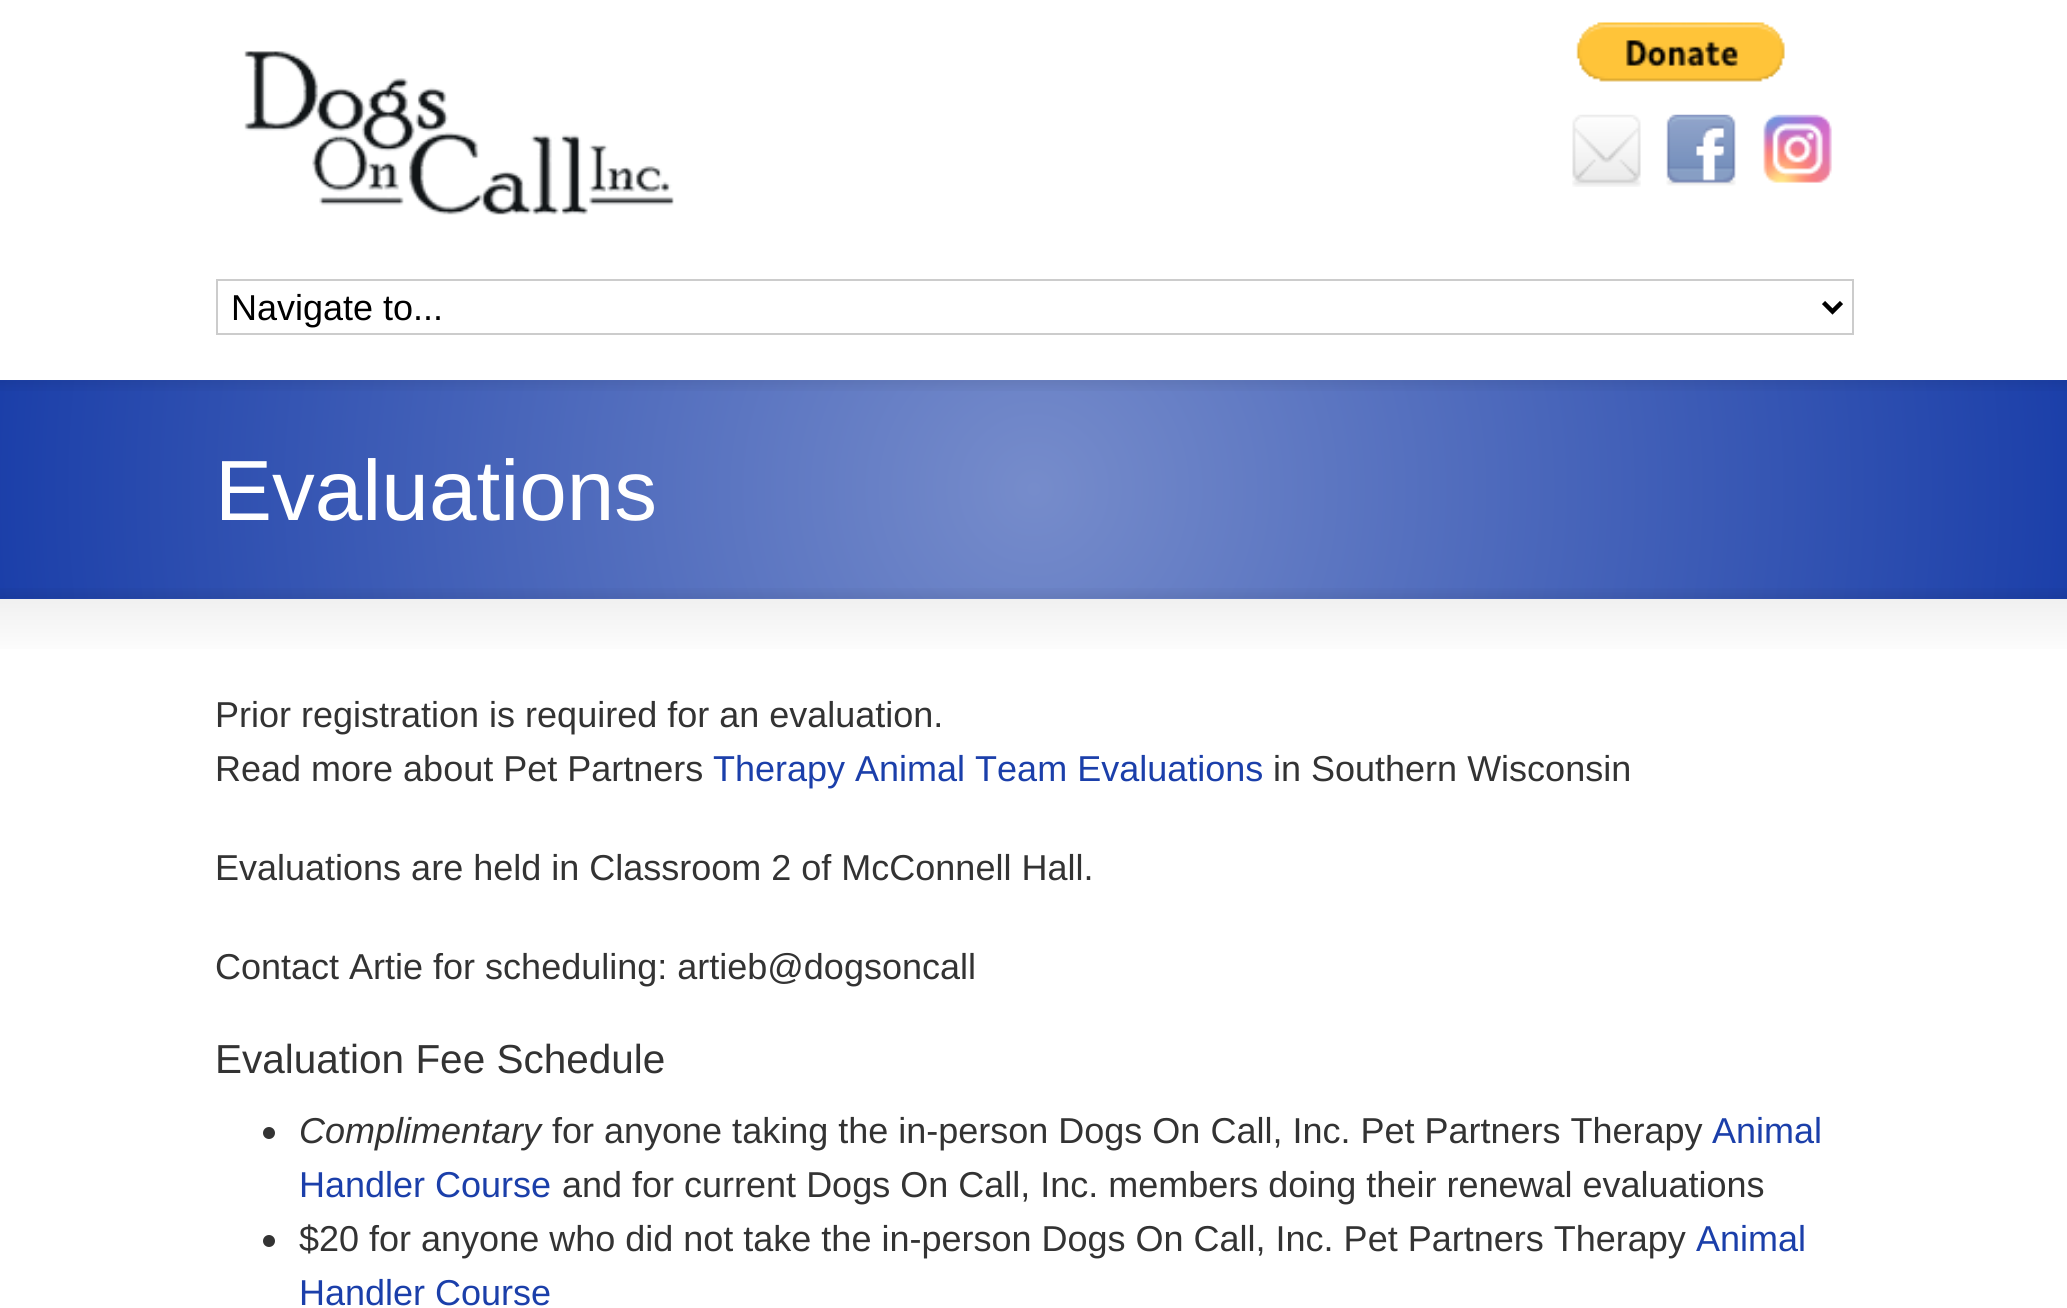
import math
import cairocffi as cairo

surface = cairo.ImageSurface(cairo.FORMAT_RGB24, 2067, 1308)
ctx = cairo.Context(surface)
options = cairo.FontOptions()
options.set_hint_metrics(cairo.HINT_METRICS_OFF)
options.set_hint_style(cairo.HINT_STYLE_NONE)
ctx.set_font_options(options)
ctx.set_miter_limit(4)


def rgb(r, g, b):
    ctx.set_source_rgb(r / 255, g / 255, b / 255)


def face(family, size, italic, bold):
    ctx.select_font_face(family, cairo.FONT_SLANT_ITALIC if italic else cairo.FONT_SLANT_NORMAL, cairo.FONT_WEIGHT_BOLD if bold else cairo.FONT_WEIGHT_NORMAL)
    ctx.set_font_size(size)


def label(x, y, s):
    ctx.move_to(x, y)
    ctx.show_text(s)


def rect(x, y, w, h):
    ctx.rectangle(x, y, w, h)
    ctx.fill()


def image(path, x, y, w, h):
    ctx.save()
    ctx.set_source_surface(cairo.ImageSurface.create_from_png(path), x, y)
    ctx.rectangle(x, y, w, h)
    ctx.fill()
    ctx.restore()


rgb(255, 255, 255)
ctx.paint()
image('image0.png', 244, 51, 430, 164)
image('image1.png', 1576, 22, 209, 60)
image('image2.png', 1572, 114, 69, 73)
image('image3.png', 1666, 114, 70, 72)
image('image4.png', 1763, 114, 69, 69)
ctx.rectangle(217, 280, 1636, 54)
rgb(204, 204, 204)
ctx.stroke()
ctx.new_path()
ctx.move_to(1823.5, 302.5)
ctx.line_to(1832.5, 311.5)
ctx.line_to(1841.5, 302.5)
rgb(0, 0, 0)
ctx.set_line_width(4.5)
ctx.stroke()
face('Liberation Sans', 36, 0, 0)
label(231, 320, 'Navigate to...')
gradient = cairo.RadialGradient(1034, 489, 0, 1034, 489, 1040)
gradient.add_color_stop_rgba(0, 0.463, 0.549, 0.796, 1)
gradient.add_color_stop_rgba(1, 0.106, 0.247, 0.663, 1)
ctx.set_source(gradient)
rect(0, 380, 2067, 219)
image('image5.png', 0, 380, 2067, 11)
face('Liberation Sans', 85.5, 0, 0)
rgb(255, 255, 255)
label(215, 520, 'Evaluations')
image('image6.png', 0, 588, 2067, 11)
gradient = cairo.LinearGradient(1034, 598, 1034, 659)
gradient.add_color_stop_rgba(0, 0.941, 0.941, 0.941, 1)
gradient.add_color_stop_rgba(1, 1, 1, 1, 1)
ctx.set_source(gradient)
rect(0, 599, 2067, 50)
face('Liberation Sans', 36, 0, 0)
rgb(51, 51, 51)
label(215, 727, 'Prior registration is required for an evaluation.')
label(215, 781, 'Read more about Pet Partners')
rgb(27, 63, 170)
label(713, 781, 'Therapy Animal Team Evaluations')
rgb(51, 51, 51)
label(1273, 781, 'in Southern Wisconsin')
label(215, 880, 'Evaluations are held in Classroom 2 of McConnell Hall.')
label(215, 979, 'Contact Artie for scheduling: artieb@dogsoncall')
face('Liberation Sans', 40.5, 0, 0)
label(215, 1073, 'Evaluation Fee Schedule')
ctx.new_path()
ctx.arc(269, 1133, 6, 0, 2 * math.pi)
ctx.fill()
face('Liberation Sans', 36, 1, 0)
label(299, 1143, 'Complimentary')
face('Liberation Sans', 36, 0, 0)
label(552, 1143, 'for anyone taking the in-person Dogs On Call, Inc. Pet Partners Therapy')
rgb(27, 63, 170)
label(1712, 1143, 'Animal')
label(299, 1197, 'Handler Course')
rgb(51, 51, 51)
label(562, 1197, 'and for current Dogs On Call, Inc. members doing their renewal evaluations')
ctx.new_path()
ctx.arc(269, 1241, 6, 0, 2 * math.pi)
ctx.fill()
label(299, 1251, '$20 for anyone who did not take the in-person Dogs On Call, Inc. Pet Partners Therapy')
rgb(27, 63, 170)
label(1696, 1251, 'Animal')
label(299, 1305, 'Handler Course')
surface.write_to_png('render.png')
